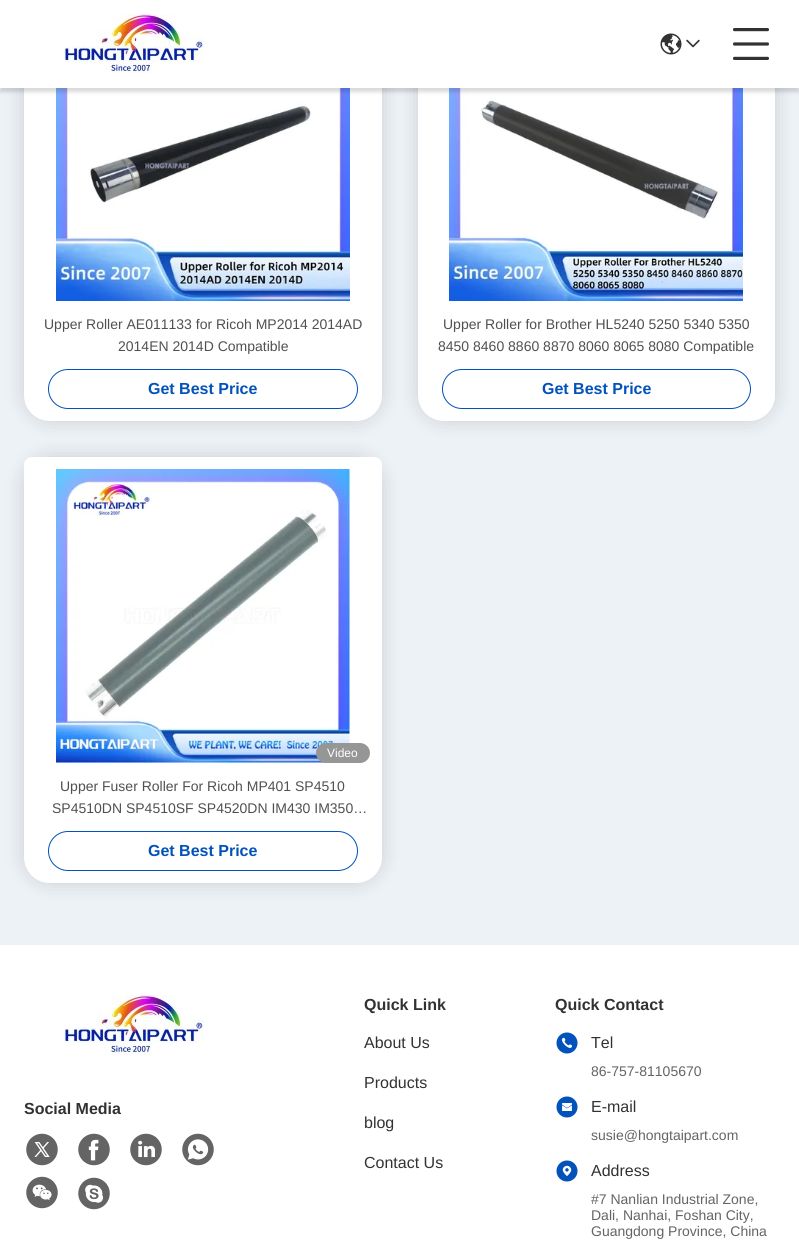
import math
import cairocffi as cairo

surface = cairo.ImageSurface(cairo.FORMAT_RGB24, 799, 1247)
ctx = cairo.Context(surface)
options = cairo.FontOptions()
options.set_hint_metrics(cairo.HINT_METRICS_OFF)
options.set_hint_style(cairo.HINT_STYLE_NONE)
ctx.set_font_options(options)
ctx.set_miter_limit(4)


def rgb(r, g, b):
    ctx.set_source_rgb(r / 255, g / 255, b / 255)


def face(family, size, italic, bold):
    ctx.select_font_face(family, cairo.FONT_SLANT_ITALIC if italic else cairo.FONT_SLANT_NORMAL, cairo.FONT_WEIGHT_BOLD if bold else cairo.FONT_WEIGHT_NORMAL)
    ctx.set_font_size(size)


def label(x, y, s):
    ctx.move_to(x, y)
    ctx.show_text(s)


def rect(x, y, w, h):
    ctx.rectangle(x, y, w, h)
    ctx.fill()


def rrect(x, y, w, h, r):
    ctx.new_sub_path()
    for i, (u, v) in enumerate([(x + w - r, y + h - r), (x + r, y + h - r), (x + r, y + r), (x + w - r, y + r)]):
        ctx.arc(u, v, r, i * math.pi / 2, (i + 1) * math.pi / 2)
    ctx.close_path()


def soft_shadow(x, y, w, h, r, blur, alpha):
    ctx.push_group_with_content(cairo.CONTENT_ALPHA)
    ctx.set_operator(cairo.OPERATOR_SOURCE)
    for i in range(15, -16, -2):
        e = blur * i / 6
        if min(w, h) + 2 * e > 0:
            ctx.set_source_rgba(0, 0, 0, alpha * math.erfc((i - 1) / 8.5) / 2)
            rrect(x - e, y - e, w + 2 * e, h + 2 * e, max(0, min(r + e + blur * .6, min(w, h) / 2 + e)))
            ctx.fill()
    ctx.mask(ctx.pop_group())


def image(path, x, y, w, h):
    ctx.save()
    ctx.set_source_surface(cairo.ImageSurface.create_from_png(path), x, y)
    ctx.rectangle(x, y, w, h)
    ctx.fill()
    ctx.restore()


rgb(237, 242, 247)
ctx.paint()
rgb(0, 0, 0)
soft_shadow(24, -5, 358, 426, 26, 10, 0.15)
rgb(255, 255, 255)
ctx.new_path()
ctx.move_to(32, -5)
ctx.line_to(374, -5)
ctx.curve_to(378.5, -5, 382, -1.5, 382, 3)
ctx.line_to(382, 395)
ctx.curve_to(382, 409.5, 370.5, 421, 356, 421)
ctx.line_to(50, 421)
ctx.curve_to(35.5, 421, 24, 409.5, 24, 395)
ctx.line_to(24, 3)
ctx.curve_to(24, -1.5, 27.5, -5, 32, -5)
ctx.close_path()
ctx.fill()
image('image4.png', 56, 88, 294, 213)
rgb(0, 0, 0)
soft_shadow(418, -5, 357, 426, 26, 10, 0.15)
rgb(255, 255, 255)
ctx.new_path()
ctx.move_to(426, -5)
ctx.line_to(767, -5)
ctx.curve_to(771.5, -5, 775, -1.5, 775, 3)
ctx.line_to(775, 395)
ctx.curve_to(775, 409.5, 763.5, 421, 749, 421)
ctx.line_to(444, 421)
ctx.curve_to(429.5, 421, 418, 409.5, 418, 395)
ctx.line_to(418, 3)
ctx.curve_to(418, -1.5, 421.5, -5, 426, -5)
ctx.close_path()
ctx.fill()
image('image5.png', 449, 88, 294, 213)
rgb(0, 0, 0)
soft_shadow(0, 4, 799, 88, 0, 2, 0.15)
rgb(255, 255, 255)
rect(0, 0, 799, 88)
image('image0.png', 64, 14, 140, 60)
image('image1.png', 660, 33, 22, 22)
image('image2.png', 686, 39, 14, 9)
image('image3.png', 733, 28, 36, 32)
face('Liberation Sans', 14, 0, 0)
rgb(80, 80, 80)
label(44, 329, 'Upper Roller AE011133 for Ricoh MP2014 2014AD')
label(118, 351, '2014EN 2014D Compatible')
rrect(48.5, 369.5, 309, 39, 19.5)
rgb(2, 82, 187)
ctx.set_line_width(1)
ctx.stroke()
face('Liberation Sans', 16, 0, 1)
label(148, 394, 'Get Best Price')
face('Liberation Sans', 14, 0, 0)
rgb(80, 80, 80)
label(443, 329, 'Upper Roller for Brother HL5240 5250 5340 5350')
label(438, 351, '8450 8460 8860 8870 8060 8065 8080 Compatible')
rrect(442.5, 369.5, 308, 39, 19.5)
rgb(2, 82, 187)
ctx.stroke()
face('Liberation Sans', 16, 0, 1)
label(542, 394, 'Get Best Price')
rgb(0, 0, 0)
soft_shadow(24, 457, 358, 426, 26, 10, 0.15)
rgb(255, 255, 255)
ctx.new_path()
ctx.move_to(32, 457)
ctx.line_to(374, 457)
ctx.curve_to(378.5, 457, 382, 460.5, 382, 465)
ctx.line_to(382, 857)
ctx.curve_to(382, 871.5, 370.5, 883, 356, 883)
ctx.line_to(50, 883)
ctx.curve_to(35.5, 883, 24, 871.5, 24, 857)
ctx.line_to(24, 465)
ctx.curve_to(24, 460.5, 27.5, 457, 32, 457)
ctx.close_path()
ctx.fill()
image('image6.png', 56, 469, 294, 294)
rgb(150, 150, 150)
rrect(316, 743, 54, 20, 10)
ctx.fill()
face('Liberation Sans', 12, 0, 0)
rgb(255, 255, 255)
label(327, 757, 'Video')
face('Liberation Sans', 14, 0, 0)
rgb(80, 80, 80)
label(60, 791, 'Upper Fuser Roller For Ricoh MP401 SP4510')
label(52, 813, 'SP4510DN SP4510SF SP4520DN IM430 IM350…')
rrect(48.5, 831.5, 309, 39, 19.5)
rgb(2, 82, 187)
ctx.stroke()
face('Liberation Sans', 16, 0, 1)
label(148, 856, 'Get Best Price')
rgb(255, 255, 255)
rect(0, 945, 799, 302)
image('image0.png', 64, 995, 140, 60)
rgb(50, 50, 50)
label(24, 1114, 'Social Media')
image('image7.png', 26, 1133, 32, 33)
image('image8.png', 78, 1133, 32, 33)
image('image9.png', 130, 1133, 32, 33)
image('image10.png', 182, 1133, 32, 33)
image('image11.png', 26, 1176, 32, 33)
image('image12.png', 78, 1177, 32, 33)
label(364, 1010, 'Quick Link')
face('Liberation Sans', 16, 0, 0)
label(364, 1048, 'About Us')
label(364, 1088, 'Products')
label(364, 1128, 'blog')
label(364, 1168, 'Contact Us')
face('Liberation Sans', 16, 0, 1)
label(555, 1010, 'Quick Contact')
image('image13.png', 556, 1032, 22, 22)
face('Liberation Sans', 16, 0, 0)
label(591, 1048, 'Tel')
face('Liberation Sans', 14, 0, 0)
rgb(100, 100, 100)
label(591, 1076, '86-757-81105670')
image('image14.png', 556, 1096, 22, 22)
face('Liberation Sans', 16, 0, 0)
rgb(50, 50, 50)
label(591, 1112, 'E-mail')
face('Liberation Sans', 14, 0, 0)
rgb(100, 100, 100)
label(591, 1140, 'susie@hongtaipart.com')
image('image15.png', 556, 1160, 22, 22)
face('Liberation Sans', 16, 0, 0)
rgb(50, 50, 50)
label(591, 1176, 'Address')
face('Liberation Sans', 14, 0, 0)
rgb(100, 100, 100)
label(591, 1204, '#7 Nanlian Industrial Zone,')
label(591, 1220, 'Dali, Nanhai, Foshan City,')
label(591, 1236, 'Guangdong Province, China')
surface.write_to_png('render.png')
